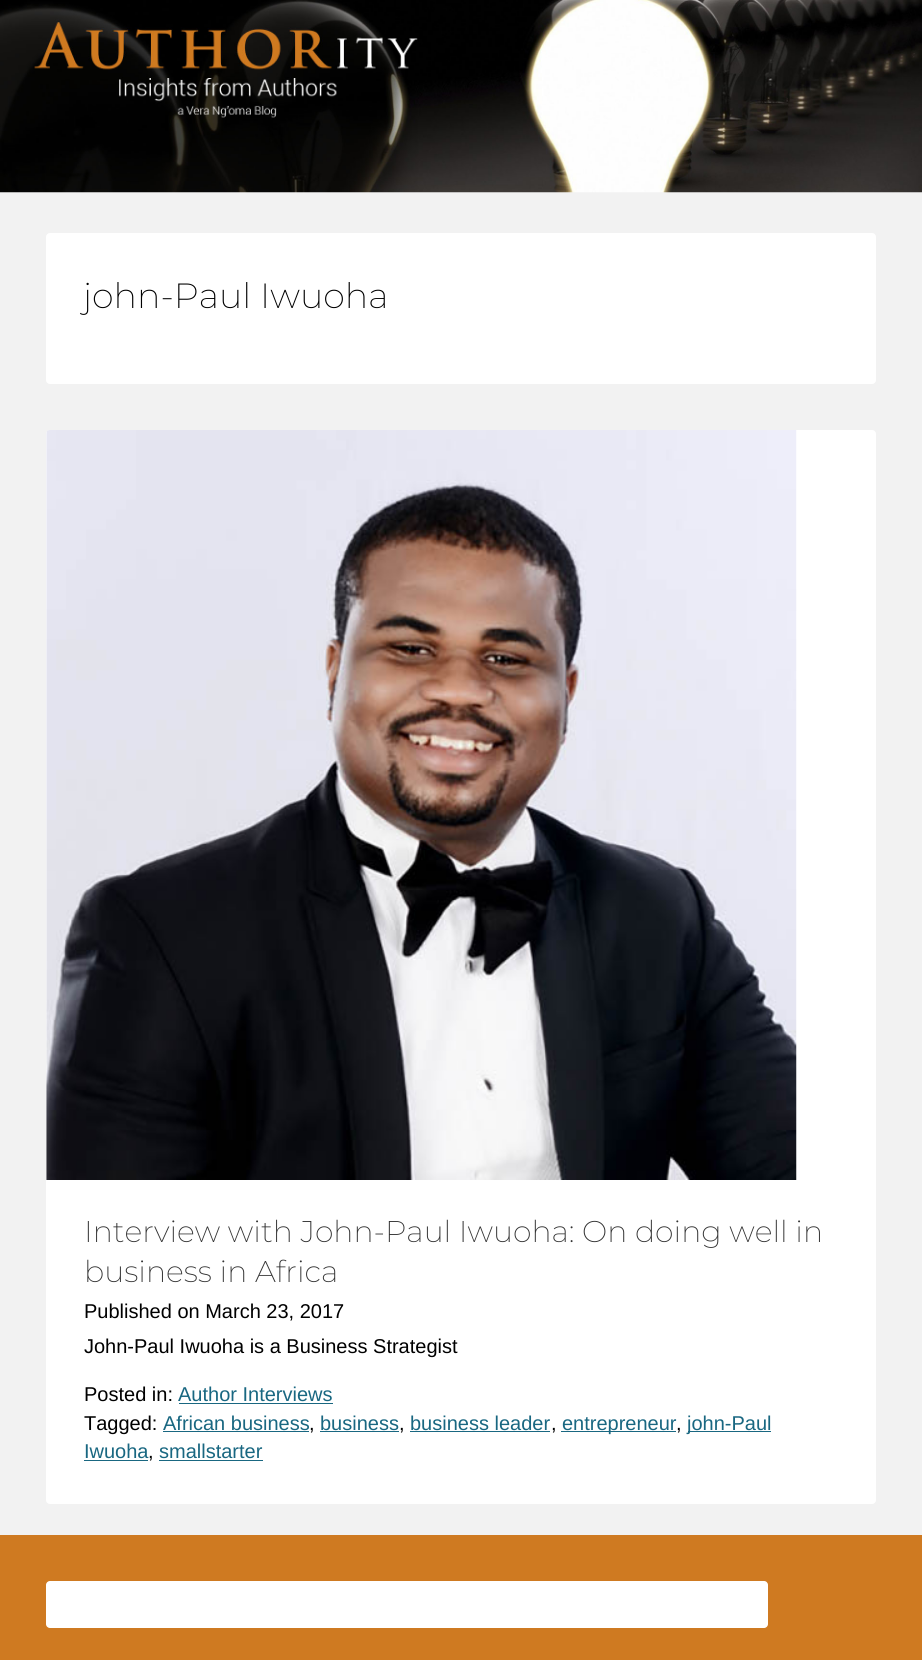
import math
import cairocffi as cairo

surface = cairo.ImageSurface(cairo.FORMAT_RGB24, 922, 1660)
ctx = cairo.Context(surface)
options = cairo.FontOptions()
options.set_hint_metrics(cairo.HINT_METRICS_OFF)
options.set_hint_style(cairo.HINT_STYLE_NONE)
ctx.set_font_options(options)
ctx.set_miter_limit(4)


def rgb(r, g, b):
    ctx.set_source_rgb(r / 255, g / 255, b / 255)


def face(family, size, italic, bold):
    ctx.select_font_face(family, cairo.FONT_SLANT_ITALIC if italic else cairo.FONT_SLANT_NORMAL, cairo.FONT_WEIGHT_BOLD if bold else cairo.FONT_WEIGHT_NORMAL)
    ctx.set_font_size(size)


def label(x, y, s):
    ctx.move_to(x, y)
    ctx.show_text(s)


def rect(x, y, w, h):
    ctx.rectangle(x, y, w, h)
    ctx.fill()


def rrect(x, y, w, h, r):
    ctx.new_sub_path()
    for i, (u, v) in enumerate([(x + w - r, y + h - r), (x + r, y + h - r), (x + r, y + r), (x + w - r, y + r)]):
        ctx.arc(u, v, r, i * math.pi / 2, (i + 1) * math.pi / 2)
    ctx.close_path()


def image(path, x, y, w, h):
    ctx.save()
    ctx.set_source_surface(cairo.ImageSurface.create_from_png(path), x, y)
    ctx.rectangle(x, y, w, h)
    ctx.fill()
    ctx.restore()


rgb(242, 242, 242)
ctx.paint()
image('image0.png', 0, 0, 922, 193)
rgb(255, 255, 255)
rrect(46, 233, 830, 151, 4)
ctx.fill()
face('Montserrat ExtraLight', 35, 0, 0)
rgb(0, 0, 0)
label(83, 308, 'john-Paul Iwuoha')
rgb(255, 255, 255)
rrect(46, 430, 830, 1074, 4)
ctx.fill()
image('image1.png', 46, 430, 751, 750)
face('Montserrat ExtraLight', 30, 0, 0)
rgb(51, 51, 51)
label(84, 1242, 'Interview with John-Paul Iwuoha: On doing well in')
label(84, 1282, 'business in Africa')
face('Liberation Sans', 20, 0, 0)
rgb(0, 0, 0)
label(84, 1318, 'Published on March 23, 2017')
label(84, 1353, 'John-Paul Iwuoha is a Business Strategist')
label(84, 1401, 'Posted in:')
rgb(25, 103, 129)
label(178, 1401, 'Author Interviews')
rect(179, 1403, 154, 1)
rgb(0, 0, 0)
label(84, 1430, 'Tagged:')
rgb(25, 103, 129)
label(163, 1430, 'African business')
rgb(0, 0, 0)
label(309, 1430, ',')
rgb(25, 103, 129)
rect(163, 1431, 146, 1)
label(320, 1430, 'business')
rgb(0, 0, 0)
label(399, 1430, ',')
rgb(25, 103, 129)
rect(320, 1431, 79, 1)
label(410, 1430, 'business leader')
rgb(0, 0, 0)
label(551, 1430, ',')
rgb(25, 103, 129)
rect(410, 1431, 140, 1)
rect(561, 1431, 115, 1)
label(562, 1430, 'entrepreneur')
rgb(0, 0, 0)
label(676, 1430, ',')
rgb(25, 103, 129)
rect(688, 1431, 83, 1)
label(687, 1430, 'john-Paul')
label(84, 1458, 'Iwuoha')
rgb(0, 0, 0)
label(148, 1458, ',')
rgb(25, 103, 129)
rect(84, 1460, 64, 1)
rect(159, 1460, 104, 1)
label(159, 1458, 'smallstarter')
rgb(207, 122, 33)
rect(0, 1535, 922, 125)
rgb(255, 255, 255)
rrect(46, 1581, 722, 47, 4)
ctx.fill()
surface.write_to_png('render.png')
